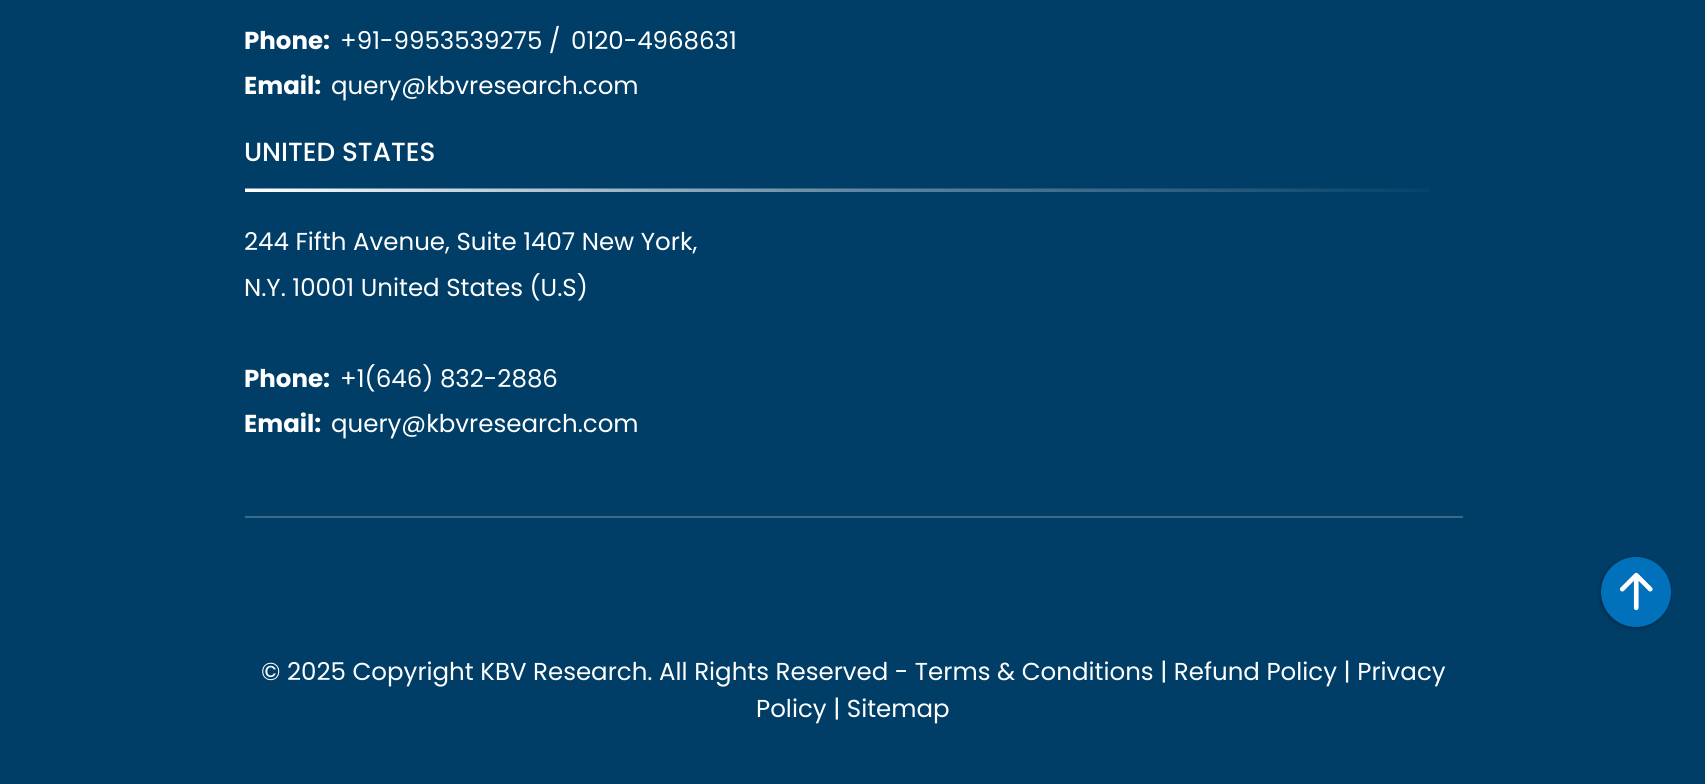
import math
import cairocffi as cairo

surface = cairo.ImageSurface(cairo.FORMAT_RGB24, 1705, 784)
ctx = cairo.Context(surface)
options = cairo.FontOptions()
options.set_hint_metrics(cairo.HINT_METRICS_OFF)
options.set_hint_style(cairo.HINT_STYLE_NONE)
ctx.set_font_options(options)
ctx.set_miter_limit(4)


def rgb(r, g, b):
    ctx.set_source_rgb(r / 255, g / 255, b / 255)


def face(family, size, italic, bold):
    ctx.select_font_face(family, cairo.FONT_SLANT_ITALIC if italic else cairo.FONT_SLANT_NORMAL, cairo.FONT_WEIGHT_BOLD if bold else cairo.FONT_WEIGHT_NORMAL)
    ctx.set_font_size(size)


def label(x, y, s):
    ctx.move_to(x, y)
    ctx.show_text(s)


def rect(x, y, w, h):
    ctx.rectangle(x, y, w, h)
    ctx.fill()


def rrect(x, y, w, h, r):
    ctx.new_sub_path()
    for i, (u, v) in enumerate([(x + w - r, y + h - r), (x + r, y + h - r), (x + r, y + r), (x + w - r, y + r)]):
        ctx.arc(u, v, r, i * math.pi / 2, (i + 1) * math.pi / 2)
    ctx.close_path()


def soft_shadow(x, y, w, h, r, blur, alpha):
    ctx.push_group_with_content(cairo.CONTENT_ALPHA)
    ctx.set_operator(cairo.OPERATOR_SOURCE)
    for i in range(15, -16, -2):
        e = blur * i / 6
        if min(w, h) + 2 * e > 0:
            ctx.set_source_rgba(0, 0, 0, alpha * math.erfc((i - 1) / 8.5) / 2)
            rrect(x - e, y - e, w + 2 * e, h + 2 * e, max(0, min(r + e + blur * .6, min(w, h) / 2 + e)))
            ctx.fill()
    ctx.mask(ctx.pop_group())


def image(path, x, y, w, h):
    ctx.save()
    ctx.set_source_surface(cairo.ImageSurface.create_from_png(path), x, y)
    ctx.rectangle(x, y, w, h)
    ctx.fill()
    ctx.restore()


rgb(0, 62, 103)
ctx.paint()
rgb(60, 107, 138)
rect(245, 516, 1218, 2)
face('Poppins', 24.5, 0, 1)
rgb(255, 255, 255)
label(244, 49, 'Phone:')
face('Poppins', 24.5, 0, 0)
label(340, 49, '+91-9953539275 /')
label(571, 49, '0120-4968631')
face('Poppins', 24.5, 0, 1)
label(244, 94, 'Email:')
face('Poppins', 24.5, 0, 0)
label(331, 94, 'query@kbvresearch.com')
image('image0.png', 245, 188, 1185, 4)
face('Poppins Medium', 26.25, 0, 0)
label(244, 161, 'UNITED STATES')
face('Poppins', 24.5, 0, 0)
label(244, 250, '244 Fifth Avenue, Suite 1407 New York,')
label(244, 296, 'N.Y. 10001 United States (U.S)')
face('Poppins', 24.5, 0, 1)
label(244, 387, 'Phone:')
face('Poppins', 24.5, 0, 0)
label(340, 387, '+1(646) 832-2886')
face('Poppins', 24.5, 0, 1)
label(244, 432, 'Email:')
face('Poppins', 24.5, 0, 0)
label(331, 432, 'query@kbvresearch.com')
label(261, 680, '© 2025 Copyright KBV Research. All Rights Reserved - Terms & Conditions | Refund Policy | Privacy')
label(756, 717, 'Policy | Sitemap')
rgb(0, 0, 0)
soft_shadow(1600, 558, 70, 70, 35, 2, 0.4)
rgb(2, 113, 187)
ctx.arc(1636, 592, 35, 0, 2 * math.pi)
ctx.fill()
image('image1.png', 1619, 572, 34, 39)
surface.write_to_png('render.png')
